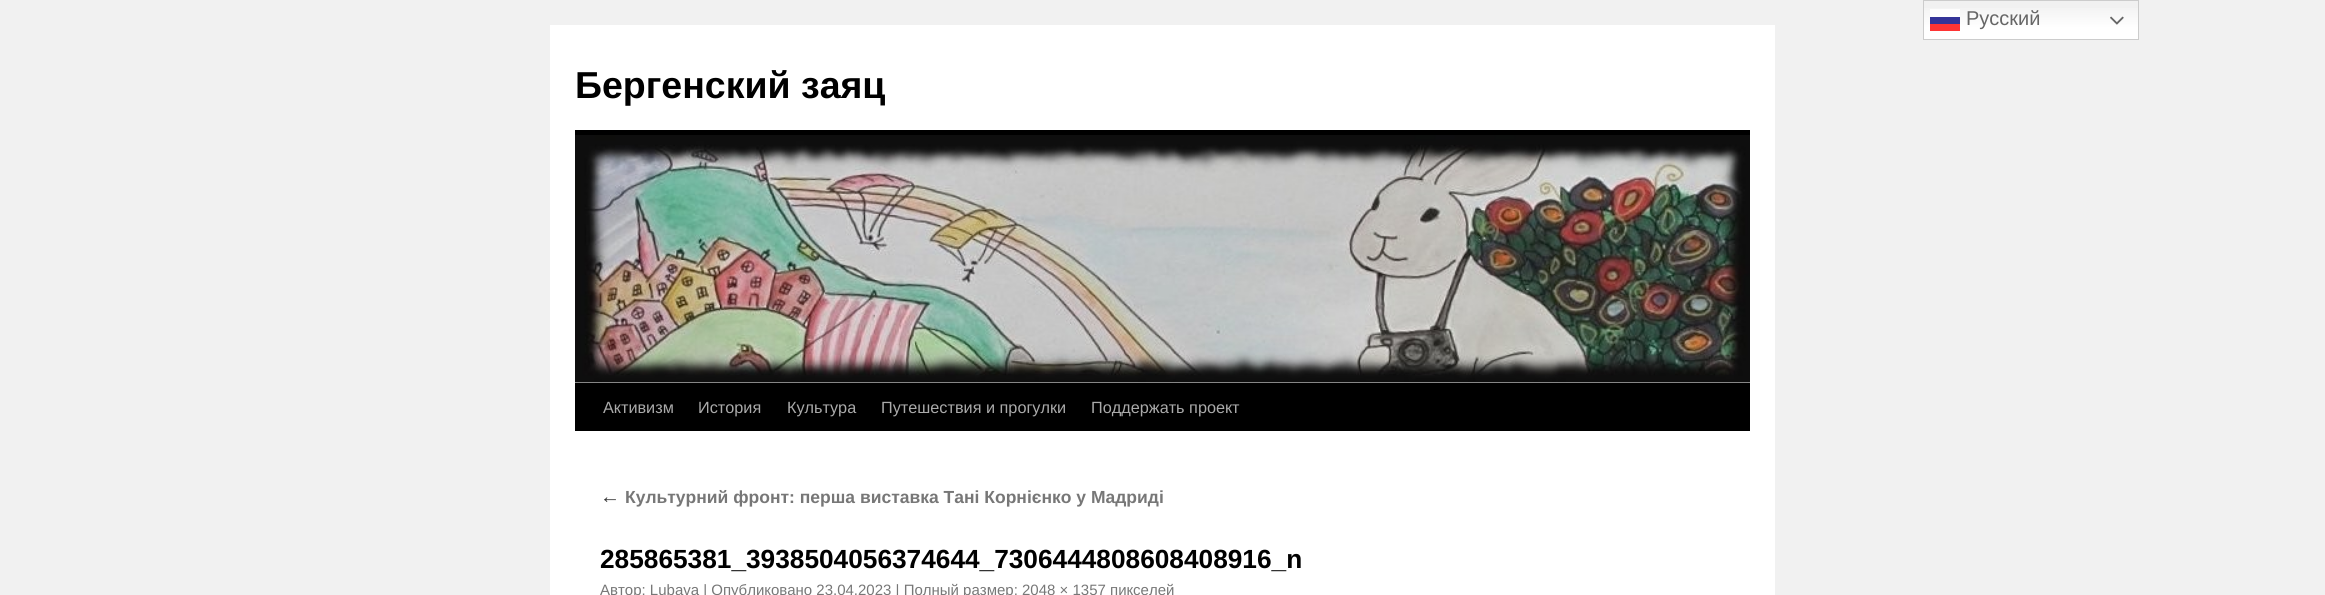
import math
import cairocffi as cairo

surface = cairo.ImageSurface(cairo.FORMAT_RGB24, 2325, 595)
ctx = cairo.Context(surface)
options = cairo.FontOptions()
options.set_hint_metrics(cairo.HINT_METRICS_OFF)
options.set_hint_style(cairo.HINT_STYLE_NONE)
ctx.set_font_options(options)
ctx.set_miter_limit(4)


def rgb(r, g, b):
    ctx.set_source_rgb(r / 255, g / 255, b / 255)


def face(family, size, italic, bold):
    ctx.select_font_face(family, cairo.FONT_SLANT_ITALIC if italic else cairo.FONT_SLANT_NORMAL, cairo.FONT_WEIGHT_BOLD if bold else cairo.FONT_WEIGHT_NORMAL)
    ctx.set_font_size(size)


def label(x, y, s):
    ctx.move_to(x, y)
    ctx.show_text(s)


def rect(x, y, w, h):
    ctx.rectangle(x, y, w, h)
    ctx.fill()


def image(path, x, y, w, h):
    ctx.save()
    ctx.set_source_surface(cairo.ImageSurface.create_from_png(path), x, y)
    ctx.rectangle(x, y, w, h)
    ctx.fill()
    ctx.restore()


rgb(241, 241, 241)
ctx.paint()
gradient = cairo.LinearGradient(2031, 0, 2031, 40)
gradient.add_color_stop_rgba(0, 0.937, 0.937, 0.937, 1)
gradient.add_color_stop_rgba(0.7, 1, 1, 1, 1)
ctx.set_source(gradient)
rect(1924, 8, 214, 31)
gradient = cairo.LinearGradient(2031, 0, 2031, 40)
gradient.add_color_stop_rgba(0, 0.988, 0.988, 0.988, 1)
gradient.add_color_stop_rgba(0.7, 1, 1, 1, 1)
ctx.set_source(gradient)
rect(1930, 9, 30, 8)
ctx.rectangle(1923.5, 0.5, 215, 39)
rgb(204, 204, 204)
ctx.set_line_width(1)
ctx.stroke()
rgb(52, 52, 152)
rect(1930, 17, 30, 7)
face('Liberation Sans', 20, 0, 0)
rgb(102, 102, 102)
label(1966, 25, 'Русский')
image('image0.png', 2110, 16, 14, 9)
rgb(254, 52, 52)
rect(1930, 24, 30, 7)
rgb(255, 255, 255)
rect(550, 25, 1225, 570)
face('Liberation Sans', 37.5, 0, 1)
rgb(0, 0, 0)
label(575, 98, 'Бергенский заяц')
rect(575, 130, 1175, 5)
rect(575, 383, 1175, 48)
image('image1.png', 575, 135, 1175, 248)
face('Liberation Sans', 16.25, 0, 0)
rgb(170, 170, 170)
label(603, 413, 'Активизм')
label(698, 413, 'История')
label(787, 413, 'Культура')
label(881, 413, 'Путешествия и прогулки')
label(1091, 413, 'Поддержать проект')
face('Liberation Serif', 20, 1, 0)
rgb(51, 51, 51)
label(600, 503, '←')
face('Liberation Sans', 17.5, 0, 1)
rgb(119, 119, 119)
label(625, 503, 'Культурний фронт: перша виставка Танi Корнієнко у Мадриді')
face('Liberation Sans', 26.25, 0, 1)
rgb(0, 0, 0)
label(600, 568, '285865381_3938504056374644_7306444808608408916_n')
face('Liberation Sans', 15, 0, 0)
rgb(119, 119, 119)
label(600, 595, 'Автор: Lubava | Опубликовано 23.04.2023 | Полный размер: 2048 × 1357 пикселей')
surface.write_to_png('render.png')
